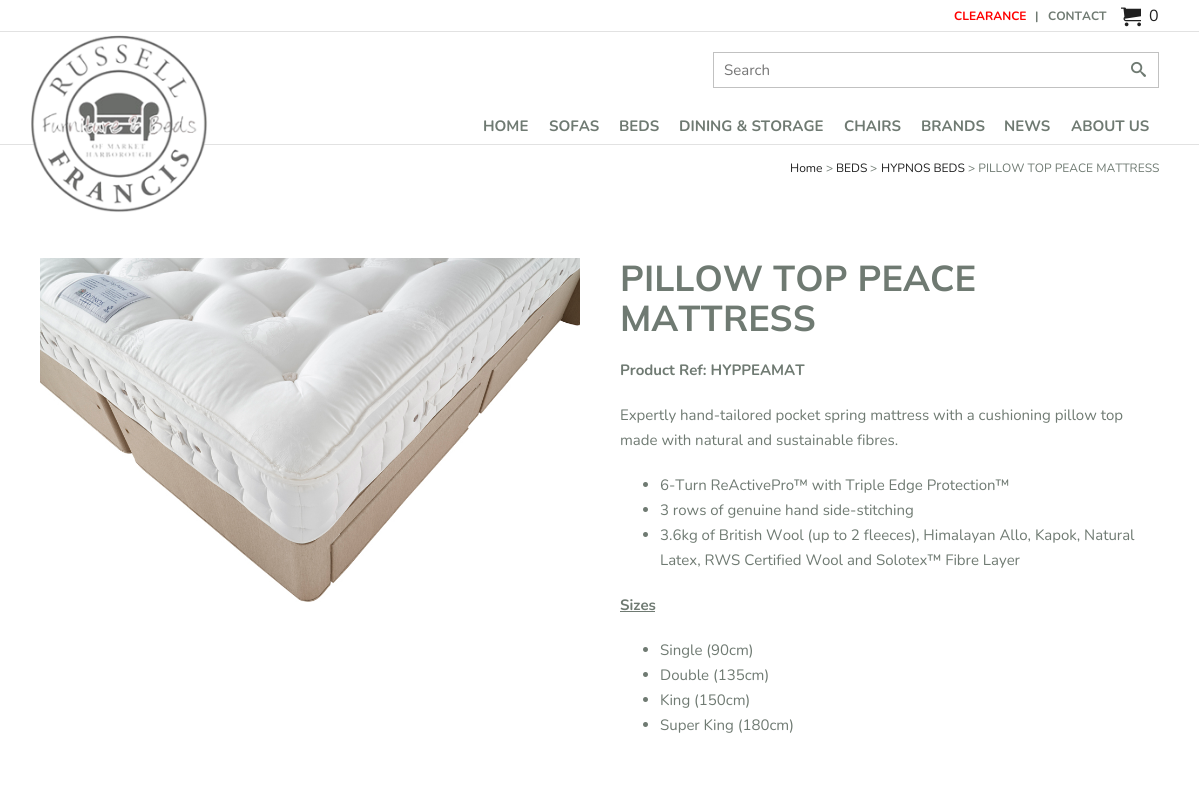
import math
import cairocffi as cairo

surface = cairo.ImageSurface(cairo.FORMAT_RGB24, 1199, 802)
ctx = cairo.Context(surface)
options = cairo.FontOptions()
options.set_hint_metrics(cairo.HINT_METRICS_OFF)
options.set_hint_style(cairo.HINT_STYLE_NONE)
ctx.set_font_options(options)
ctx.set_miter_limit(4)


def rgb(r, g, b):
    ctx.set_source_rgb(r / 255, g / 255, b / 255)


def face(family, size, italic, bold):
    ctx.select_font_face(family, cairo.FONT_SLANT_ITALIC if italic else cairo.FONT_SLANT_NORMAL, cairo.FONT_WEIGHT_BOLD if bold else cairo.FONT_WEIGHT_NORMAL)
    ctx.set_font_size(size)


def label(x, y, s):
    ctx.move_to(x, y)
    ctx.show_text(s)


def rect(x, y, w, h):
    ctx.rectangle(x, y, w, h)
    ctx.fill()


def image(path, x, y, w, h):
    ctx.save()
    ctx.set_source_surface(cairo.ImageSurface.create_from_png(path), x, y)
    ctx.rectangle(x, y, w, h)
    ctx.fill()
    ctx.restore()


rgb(255, 255, 255)
ctx.paint()
rgb(226, 226, 226)
rect(0, 31, 1199, 1)
face('Nunito', 12, 0, 1)
rgb(255, 0, 0)
label(954, 20, 'CLEARANCE')
rgb(111, 122, 114)
label(1035, 20, '|')
label(1048, 20, 'CONTACT')
image('image0.png', 1121, 7, 20, 20)
face('Nunito', 16, 0, 0)
rgb(32, 32, 32)
label(1149, 21, '0')
rgb(226, 226, 226)
rect(0, 144, 1199, 1)
image('image1.png', 31, 35, 177, 178)
ctx.rectangle(713.5, 52.5, 445, 35)
rgb(193, 193, 193)
ctx.set_line_width(1)
ctx.stroke()
face('Nunito', 15, 0, 0)
rgb(117, 117, 117)
label(724, 75, 'Search')
image('image2.png', 1131, 61, 15, 16)
face('Nunito', 15, 0, 1)
rgb(111, 122, 114)
label(483, 131, 'HOME')
label(549, 131, 'SOFAS')
label(619, 131, 'BEDS')
label(679, 131, 'DINING & STORAGE')
label(844, 131, 'CHAIRS')
label(921, 131, 'BRANDS')
label(1004, 131, 'NEWS')
label(1071, 131, 'ABOUT US')
face('Nunito', 12, 0, 0)
rgb(32, 32, 32)
label(790, 172, 'Home')
rgb(111, 122, 114)
label(826, 172, '>')
rgb(32, 32, 32)
label(836, 172, 'BEDS')
rgb(111, 122, 114)
label(870, 172, '>')
rgb(32, 32, 32)
label(881, 172, 'HYPNOS BEDS')
rgb(111, 122, 114)
label(968, 172, '> PILLOW TOP PEACE MATTRESS')
image('image3.png', 40, 258, 540, 344)
face('Mulish ExtraLight', 36, 0, 0)
label(620, 291, 'PILLOW TOP PEACE')
label(620, 331, 'MATTRESS')
face('Nunito', 15, 0, 1)
label(620, 375, 'Product Ref: HYPPEAMAT')
face('Nunito', 15, 0, 0)
label(620, 420, 'Expertly hand-tailored pocket spring mattress with a cushioning pillow top')
label(620, 445, 'made with natural and sustainable fibres.')
ctx.new_path()
ctx.arc(645.5, 484.5, 2.5, 0, 2 * math.pi)
ctx.fill()
label(660, 490, '6-Turn ReActivePro™ with Triple Edge Protection™')
ctx.new_path()
ctx.arc(645.5, 509.5, 2.5, 0, 2 * math.pi)
ctx.fill()
label(660, 515, '3 rows of genuine hand side-stitching')
ctx.new_path()
ctx.arc(645.5, 534.5, 2.5, 0, 2 * math.pi)
ctx.fill()
label(660, 540, '3.6kg of British Wool (up to 2 fleeces), Himalayan Allo, Kapok, Natural')
label(660, 565, 'Latex, RWS Certified Wool and Solotex™ Fibre Layer')
face('Nunito', 15, 0, 1)
label(620, 610, 'Sizes')
rect(620, 611, 35, 1)
ctx.new_path()
ctx.arc(645.5, 649.5, 2.5, 0, 2 * math.pi)
ctx.fill()
face('Nunito', 15, 0, 0)
label(660, 655, 'Single (90cm)')
ctx.new_path()
ctx.arc(645.5, 674.5, 2.5, 0, 2 * math.pi)
ctx.fill()
label(660, 680, 'Double (135cm)')
ctx.new_path()
ctx.arc(645.5, 699.5, 2.5, 0, 2 * math.pi)
ctx.fill()
label(660, 705, 'King (150cm)')
ctx.new_path()
ctx.arc(645.5, 724.5, 2.5, 0, 2 * math.pi)
ctx.fill()
label(660, 730, 'Super King (180cm)')
surface.write_to_png('render.png')
